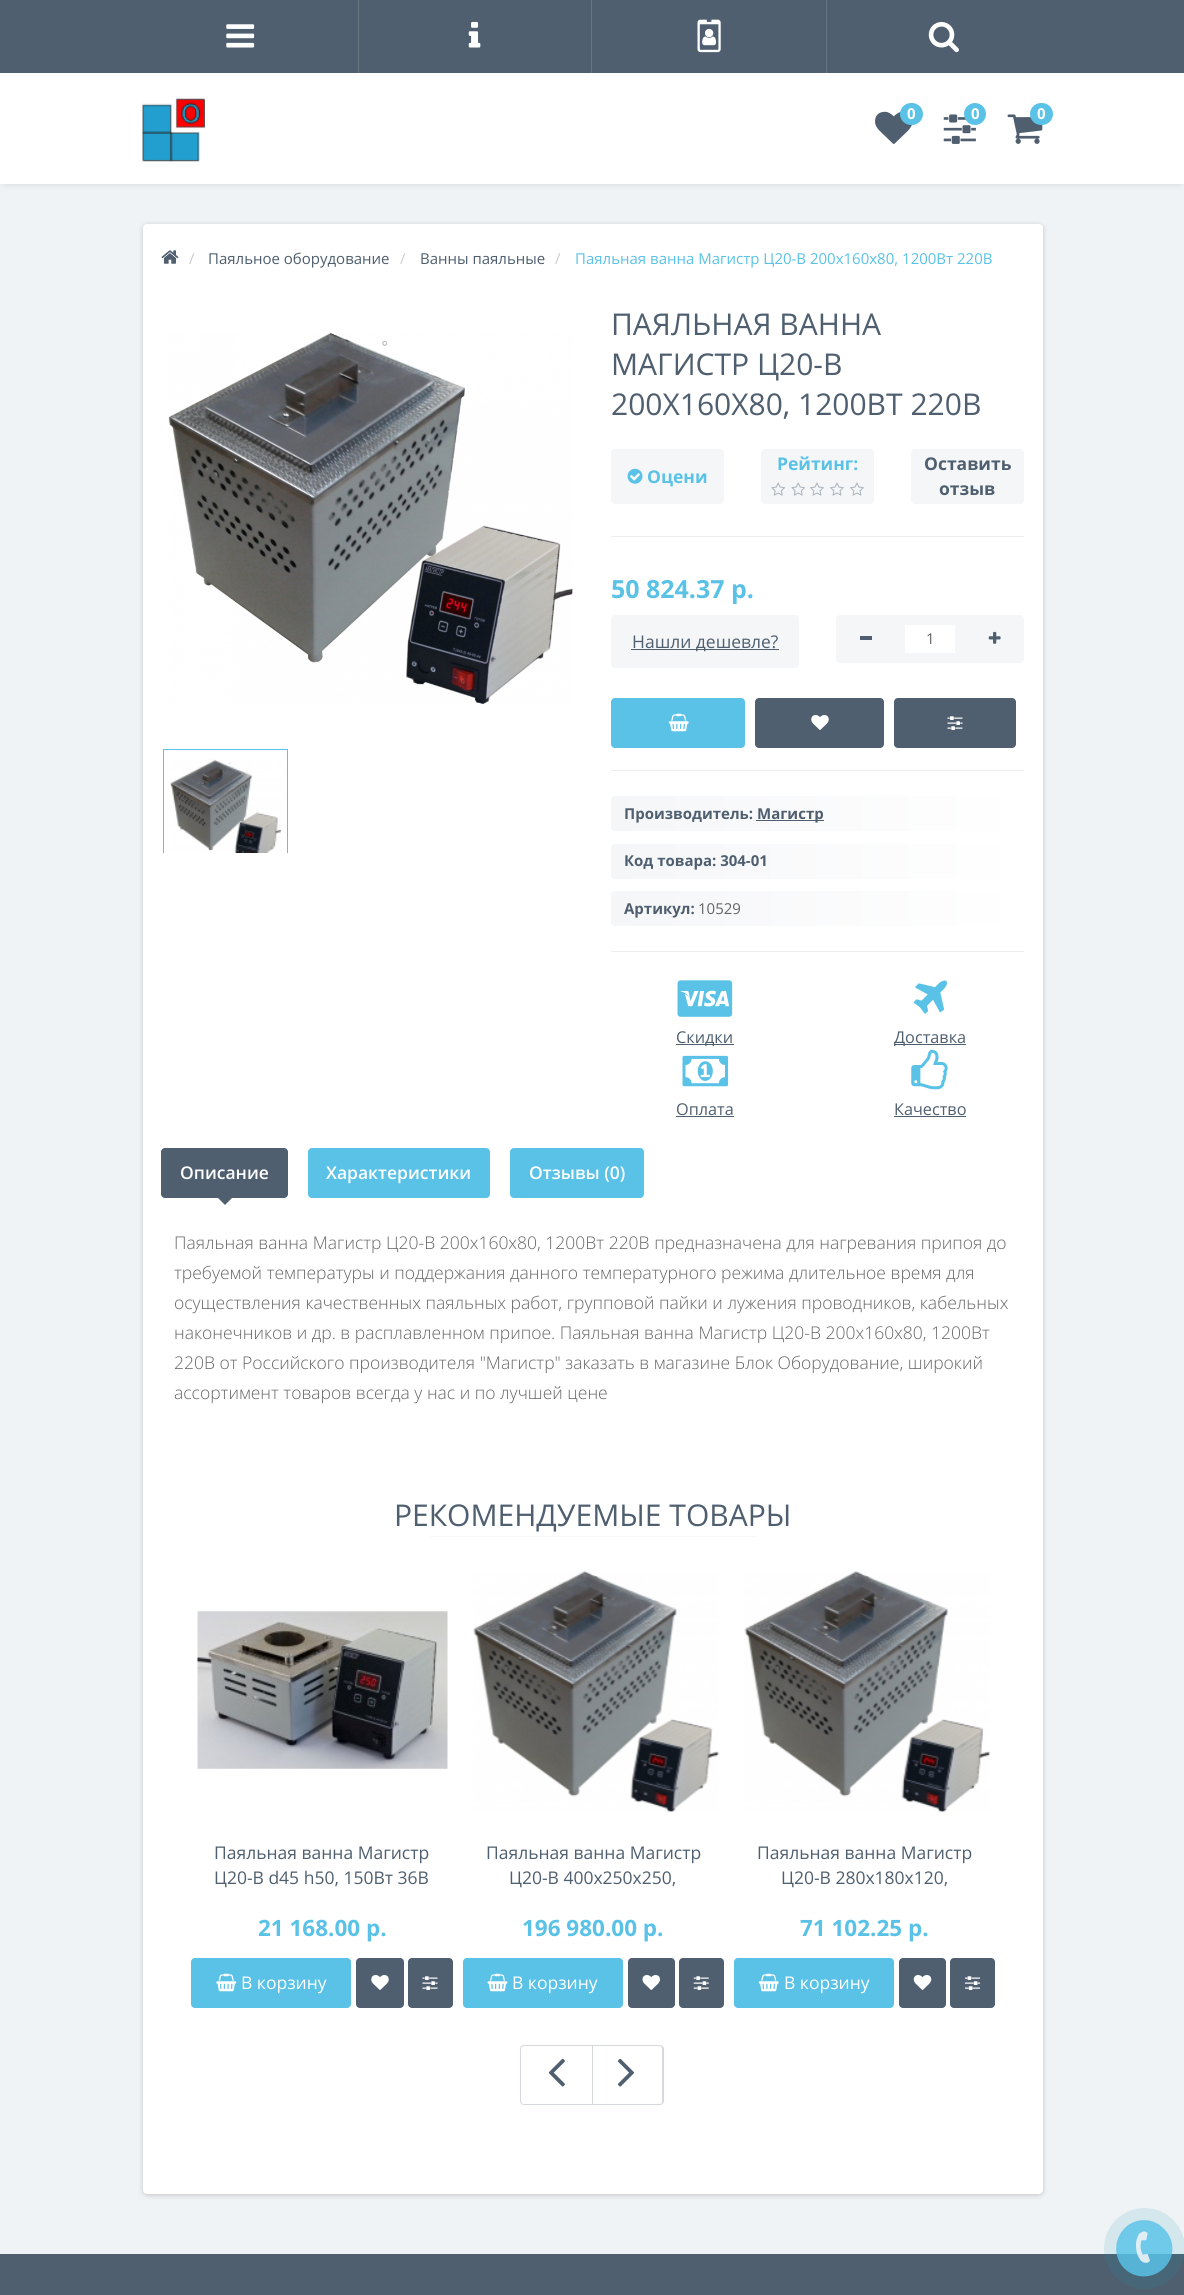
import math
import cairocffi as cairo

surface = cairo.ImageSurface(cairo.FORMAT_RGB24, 1184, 2295)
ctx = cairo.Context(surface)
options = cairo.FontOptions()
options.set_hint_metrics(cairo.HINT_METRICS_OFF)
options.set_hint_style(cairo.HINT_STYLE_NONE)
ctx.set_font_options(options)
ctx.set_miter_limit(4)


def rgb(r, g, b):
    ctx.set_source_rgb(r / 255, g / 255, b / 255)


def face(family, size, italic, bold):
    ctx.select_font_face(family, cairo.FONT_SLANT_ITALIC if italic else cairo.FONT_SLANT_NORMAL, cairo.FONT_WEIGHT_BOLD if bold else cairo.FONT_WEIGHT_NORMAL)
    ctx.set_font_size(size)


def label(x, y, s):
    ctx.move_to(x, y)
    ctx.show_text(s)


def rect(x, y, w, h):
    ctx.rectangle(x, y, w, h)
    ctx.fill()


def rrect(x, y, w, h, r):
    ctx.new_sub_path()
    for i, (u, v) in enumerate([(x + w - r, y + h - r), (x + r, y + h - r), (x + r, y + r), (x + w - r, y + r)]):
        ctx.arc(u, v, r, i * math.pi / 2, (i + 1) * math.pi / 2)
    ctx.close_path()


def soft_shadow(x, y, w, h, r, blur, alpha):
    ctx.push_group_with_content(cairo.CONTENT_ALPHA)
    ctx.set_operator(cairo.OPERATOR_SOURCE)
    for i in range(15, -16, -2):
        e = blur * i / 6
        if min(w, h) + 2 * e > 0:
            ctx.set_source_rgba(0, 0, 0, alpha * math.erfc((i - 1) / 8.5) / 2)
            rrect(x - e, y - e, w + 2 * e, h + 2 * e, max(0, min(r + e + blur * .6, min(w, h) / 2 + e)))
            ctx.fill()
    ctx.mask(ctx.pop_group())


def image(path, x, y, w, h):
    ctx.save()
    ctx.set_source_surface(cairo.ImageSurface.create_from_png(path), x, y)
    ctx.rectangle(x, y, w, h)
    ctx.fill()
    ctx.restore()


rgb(240, 243, 246)
ctx.paint()
rgb(0, 0, 0)
soft_shadow(5, 10, 1175, 174, 0, 4, 0.12)
rgb(79, 95, 111)
rect(0, 0, 1184, 73)
rgb(104, 116, 128)
rect(358, 0, 1, 73)
image('image0.png', 226, 24, 29, 24)
rect(591, 0, 1, 73)
image('image1.png', 468, 21, 13, 27)
rect(826, 0, 1, 73)
image('image2.png', 697, 19, 24, 34)
image('image3.png', 928, 22, 31, 31)
rgb(255, 255, 255)
rect(0, 73, 1184, 111)
image('image4.png', 142, 98, 63, 64)
image('image5.png', 875, 111, 38, 33)
rgb(89, 194, 230)
rrect(900, 103, 23, 22, 11)
ctx.fill()
face('Open Sans', 15, 0, 1)
rgb(255, 255, 255)
label(907, 119, '0')
image('image6.png', 943, 114, 33, 30)
rgb(89, 194, 230)
ctx.arc(975, 114, 11, 0, 2 * math.pi)
ctx.fill()
rgb(255, 255, 255)
label(971, 119, '0')
image('image7.png', 1007, 114, 36, 30)
rgb(89, 194, 230)
rrect(1030, 103, 23, 22, 11)
ctx.fill()
rgb(255, 255, 255)
label(1037, 119, '0')
rgb(0, 0, 0)
soft_shadow(143, 225, 900, 1970, 4, 2.5, 0.2)
rgb(255, 255, 255)
rrect(143, 224, 900, 1970, 4)
ctx.fill()
image('image8.png', 161, 250, 18, 14)
face('Open Sans', 15, 0, 0)
rgb(204, 204, 204)
label(189, 264, '/')
rgb(79, 95, 111)
label(208, 264, 'Паяльное оборудование')
rgb(204, 204, 204)
label(400, 264, '/')
rgb(79, 95, 111)
label(420, 264, 'Ванны паяльные')
rgb(204, 204, 204)
label(555, 264, '/')
rgb(89, 194, 230)
label(575, 264, 'Паяльная ванна Магистр Ц20-В 200x160x80, 1200Вт 220В')
image('image9.png', 168, 333, 405, 372)
ctx.save()
ctx.rectangle(163, 749, 411, 104)
ctx.clip()
ctx.rectangle(163.5, 749.5, 124, 124)
ctx.set_line_width(1)
ctx.stroke()
ctx.restore()
image('image10.png', 170, 759, 111, 94)
face('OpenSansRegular', 30, 0, 0)
rgb(79, 95, 111)
label(611, 335, 'ПАЯЛЬНАЯ ВАННА')
label(611, 375, 'МАГИСТР Ц20-В')
label(611, 415, '200X160X80, 1200ВТ 220В')
rgb(244, 246, 248)
rrect(611, 449, 113, 55, 4)
ctx.fill()
image('image11.png', 627, 468, 16, 16)
face('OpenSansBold', 17.5, 0, 1)
rgb(89, 194, 230)
label(647, 483, 'Оцени')
rgb(244, 246, 248)
rrect(761, 449, 113, 55, 4)
ctx.fill()
rgb(89, 194, 230)
label(777, 470, 'Рейтинг:')
image('image12.png', 771, 482, 15, 14)
image('image12.png', 791, 482, 15, 14)
image('image13.png', 810, 482, 14, 14)
image('image13.png', 830, 482, 14, 14)
image('image13.png', 850, 482, 14, 14)
rgb(244, 246, 248)
rrect(911, 449, 113, 55, 4)
ctx.fill()
rgb(79, 95, 111)
label(924, 470, 'Оставить')
label(939, 495, 'отзыв')
rgb(238, 238, 238)
rect(611, 536, 413, 1)
face('OpenSansBold', 25, 0, 1)
rgb(89, 194, 230)
label(611, 598, '50 824.37 р.')
rgb(244, 246, 248)
rrect(611, 615, 188, 53, 4)
ctx.fill()
rgb(79, 95, 111)
rect(631, 649, 148, 1)
face('OpenSansRegular', 17.5, 0, 0)
label(632, 648, 'Нашли дешевле?')
rgb(244, 246, 248)
rrect(836, 615, 188, 48, 4)
ctx.fill()
rgb(79, 95, 111)
rect(860, 636, 12, 4)
rgb(255, 255, 255)
rect(905, 625, 50, 28)
face('Open Sans', 15, 0, 0)
rgb(102, 102, 102)
label(926, 644, '1')
image('image14.png', 988, 631, 13, 13)
rgb(89, 194, 230)
rrect(611, 698, 134, 50, 4)
ctx.fill()
image('image15.png', 668, 713, 21, 19)
rgb(79, 95, 111)
rrect(755, 698, 129, 50, 4)
ctx.fill()
image('image16.png', 811, 715, 18, 15)
rrect(894, 698, 122, 50, 4)
ctx.fill()
image('image17.png', 947, 716, 16, 14)
rgb(238, 238, 238)
rect(611, 770, 413, 1)
gradient = cairo.LinearGradient(611, 814, 1024, 814)
gradient.add_color_stop_rgba(0, 0.961, 0.965, 0.973, 1)
gradient.add_color_stop_rgba(1, 1, 1, 1, 1)
ctx.set_source(gradient)
rrect(611, 796, 413, 35, 4)
ctx.fill()
face('OpenSansBold', 15, 0, 1)
rgb(79, 95, 111)
label(624, 819, 'Производитель:')
rect(756, 820, 68, 1)
label(757, 819, 'Магистр')
gradient = cairo.LinearGradient(611, 861, 1024, 861)
gradient.add_color_stop_rgba(0, 0.961, 0.965, 0.973, 1)
gradient.add_color_stop_rgba(1, 1, 1, 1, 1)
ctx.set_source(gradient)
rrect(611, 844, 413, 35, 4)
ctx.fill()
rgb(79, 95, 111)
label(624, 866, 'Код товара: 304-01')
gradient = cairo.LinearGradient(611, 909, 1024, 909)
gradient.add_color_stop_rgba(0, 0.961, 0.965, 0.973, 1)
gradient.add_color_stop_rgba(1, 1, 1, 1, 1)
ctx.set_source(gradient)
rrect(611, 891, 413, 35, 4)
ctx.fill()
rgb(79, 95, 111)
label(624, 914, 'Артикул:')
face('Open Sans', 15, 0, 0)
rgb(102, 102, 102)
label(698, 914, '10529')
rgb(238, 238, 238)
rect(611, 951, 413, 1)
image('image18.png', 677, 980, 56, 37)
rgb(79, 95, 111)
rect(676, 1044, 58, 1)
face('Open Sans', 16.25, 0, 0)
label(676, 1043, 'Скидки')
image('image19.png', 913, 980, 34, 34)
rect(894, 1044, 72, 1)
label(894, 1043, 'Доставка')
image('image20.png', 682, 1055, 47, 32)
label(676, 1115, 'Оплата')
rect(676, 1116, 58, 1)
image('image21.png', 911, 1049, 37, 41)
label(894, 1115, 'Качество')
rect(894, 1116, 72, 1)
rrect(161, 1148, 127, 50, 4)
ctx.fill()
face('Open Sans SemiBold', 17.5, 0, 0)
rgb(255, 255, 255)
label(180, 1179, 'Описание')
rgb(79, 95, 111)
ctx.new_path()
ctx.move_to(217.5, 1197.5)
ctx.line_to(232.5, 1197.5)
ctx.line_to(225, 1205)
ctx.close_path()
ctx.fill()
rgb(89, 194, 230)
rrect(308, 1148, 182, 50, 4)
ctx.fill()
rgb(255, 255, 255)
label(326, 1179, 'Характеристики')
rgb(89, 194, 230)
rrect(510, 1148, 134, 50, 4)
ctx.fill()
rgb(255, 255, 255)
label(529, 1179, 'Отзывы (0)')
face('Open Sans Light', 17.5, 0, 0)
rgb(102, 102, 102)
label(174, 1249, 'Паяльная ванна Магистр Ц20-В 200x160x80, 1200Вт 220В предназначена для нагревания припоя до')
label(174, 1279, 'требуемой температуры и поддержания данного температурного режима длительное время для')
label(174, 1309, 'осуществления качественных паяльных работ, групповой пайки и лужения проводников, кабельных')
label(174, 1339, 'наконечников и др. в расплавленном припое. Паяльная ванна Магистр Ц20-В 200x160x80, 1200Вт')
label(174, 1369, '220В от Российского производителя "Магистр" заказать в магазине Блок Оборудование, широкий')
label(174, 1399, 'ассортимент товаров всегда у нас и по лучшей цене')
face('OpenSansRegular', 30, 0, 0)
rgb(79, 95, 111)
label(394, 1526, 'РЕКОМЕНДУЕМЫЕ ТОВАРЫ')
rgb(248, 248, 248)
rect(430, 1536, 325, 1)
image('image22.png', 197, 1611, 251, 158)
face('Open Sans', 17.5, 0, 0)
rgb(79, 95, 111)
label(214, 1859, 'Паяльная ванна Магистр')
label(214, 1884, 'Ц20-В d45 h50, 150Вт 36В')
face('OpenSansBold', 22.5, 0, 1)
rgb(89, 194, 230)
label(258, 1936, '21 168.00 р.')
rrect(191, 1958, 160, 50, 4)
ctx.fill()
image('image23.png', 216, 1973, 21, 19)
face('Open Sans', 17.5, 0, 0)
rgb(255, 255, 255)
label(241, 1989, 'В корзину')
rgb(79, 95, 111)
rrect(356, 1958, 48, 50, 4)
ctx.fill()
image('image16.png', 371, 1975, 18, 15)
rrect(408, 1958, 45, 50, 4)
ctx.fill()
image('image17.png', 422, 1976, 16, 14)
image('image24.png', 473, 1571, 247, 242)
label(486, 1859, 'Паяльная ванна Магистр')
label(509, 1884, 'Ц20-В 400x250x250,')
face('OpenSansBold', 22.5, 0, 1)
rgb(89, 194, 230)
label(522, 1936, '196 980.00 р.')
rrect(463, 1958, 160, 50, 4)
ctx.fill()
image('image25.png', 487, 1973, 21, 19)
face('Open Sans', 17.5, 0, 0)
rgb(255, 255, 255)
label(512, 1989, 'В корзину')
rgb(79, 95, 111)
rrect(628, 1958, 47, 50, 4)
ctx.fill()
image('image26.png', 642, 1975, 18, 15)
rrect(679, 1958, 45, 50, 4)
ctx.fill()
image('image27.png', 693, 1976, 16, 14)
image('image28.png', 744, 1571, 247, 242)
label(757, 1859, 'Паяльная ванна Магистр')
label(781, 1884, 'Ц20-В 280x180x120,')
face('OpenSansBold', 22.5, 0, 1)
rgb(89, 194, 230)
label(800, 1936, '71 102.25 р.')
rrect(734, 1958, 160, 50, 4)
ctx.fill()
image('image15.png', 758, 1973, 21, 19)
face('Open Sans', 17.5, 0, 0)
rgb(255, 255, 255)
label(784, 1989, 'В корзину')
rgb(79, 95, 111)
rrect(899, 1958, 47, 50, 4)
ctx.fill()
image('image29.png', 913, 1975, 19, 15)
rrect(950, 1958, 45, 50, 4)
ctx.fill()
image('image30.png', 965, 1976, 15, 14)
ctx.new_path()
ctx.move_to(524, 2045.5)
ctx.line_to(592.5, 2045.5)
ctx.line_to(592.5, 2104.5)
ctx.line_to(524, 2104.5)
ctx.curve_to(522, 2104.5, 520.5, 2103, 520.5, 2101)
ctx.line_to(520.5, 2049)
ctx.curve_to(520.5, 2047, 522, 2045.5, 524, 2045.5)
ctx.close_path()
rgb(213, 217, 221)
ctx.set_line_width(1)
ctx.stroke()
image('image31.png', 548, 2058, 17, 29)
ctx.set_fill_rule(cairo.FILL_RULE_EVEN_ODD)
ctx.new_path()
ctx.move_to(591, 2045)
ctx.line_to(660, 2045)
ctx.curve_to(662, 2045, 664, 2047, 664, 2049)
ctx.line_to(664, 2101)
ctx.curve_to(664, 2103, 662, 2105, 660, 2105)
ctx.line_to(591, 2105)
ctx.close_path()
ctx.move_to(591, 2046)
ctx.line_to(660, 2046)
ctx.curve_to(661, 2046, 662, 2047, 662, 2049)
ctx.line_to(662, 2101)
ctx.curve_to(662, 2103, 661, 2104, 660, 2104)
ctx.line_to(591, 2104)
ctx.close_path()
ctx.fill()
image('image32.png', 617, 2058, 18, 29)
rgb(79, 95, 111)
rect(0, 2254, 1184, 41)
ctx.arc(1144.5, 2248.5, 34, 0, 2 * math.pi)
ctx.set_source_rgba(0.082, 0.588, 0.686, 0.13)
ctx.set_line_width(13)
ctx.stroke()
ctx.set_source_rgba(0.349, 0.761, 0.902, 0.85)
ctx.set_fill_rule(cairo.FILL_RULE_WINDING)
ctx.new_path()
ctx.move_to(1162, 2227)
ctx.curve_to(1174, 2237, 1176, 2254, 1166, 2266)
ctx.curve_to(1156, 2278, 1138, 2280, 1126, 2270)
ctx.curve_to(1114, 2260, 1113, 2242, 1123, 2230)
ctx.curve_to(1133, 2218, 1151, 2217, 1162, 2227)
ctx.close_path()
ctx.fill()
image('image33.png', 1136, 2231, 14, 32)
surface.write_to_png('render.png')
